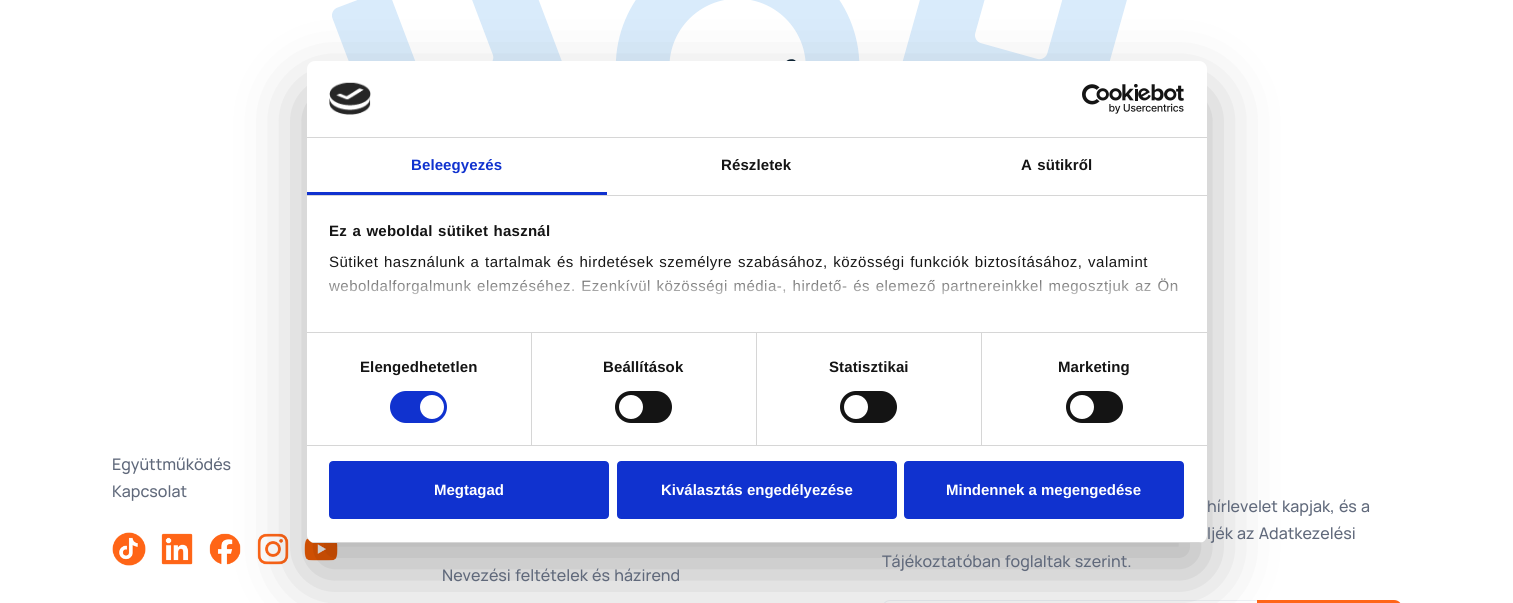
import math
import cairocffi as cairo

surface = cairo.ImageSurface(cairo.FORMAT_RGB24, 1513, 603)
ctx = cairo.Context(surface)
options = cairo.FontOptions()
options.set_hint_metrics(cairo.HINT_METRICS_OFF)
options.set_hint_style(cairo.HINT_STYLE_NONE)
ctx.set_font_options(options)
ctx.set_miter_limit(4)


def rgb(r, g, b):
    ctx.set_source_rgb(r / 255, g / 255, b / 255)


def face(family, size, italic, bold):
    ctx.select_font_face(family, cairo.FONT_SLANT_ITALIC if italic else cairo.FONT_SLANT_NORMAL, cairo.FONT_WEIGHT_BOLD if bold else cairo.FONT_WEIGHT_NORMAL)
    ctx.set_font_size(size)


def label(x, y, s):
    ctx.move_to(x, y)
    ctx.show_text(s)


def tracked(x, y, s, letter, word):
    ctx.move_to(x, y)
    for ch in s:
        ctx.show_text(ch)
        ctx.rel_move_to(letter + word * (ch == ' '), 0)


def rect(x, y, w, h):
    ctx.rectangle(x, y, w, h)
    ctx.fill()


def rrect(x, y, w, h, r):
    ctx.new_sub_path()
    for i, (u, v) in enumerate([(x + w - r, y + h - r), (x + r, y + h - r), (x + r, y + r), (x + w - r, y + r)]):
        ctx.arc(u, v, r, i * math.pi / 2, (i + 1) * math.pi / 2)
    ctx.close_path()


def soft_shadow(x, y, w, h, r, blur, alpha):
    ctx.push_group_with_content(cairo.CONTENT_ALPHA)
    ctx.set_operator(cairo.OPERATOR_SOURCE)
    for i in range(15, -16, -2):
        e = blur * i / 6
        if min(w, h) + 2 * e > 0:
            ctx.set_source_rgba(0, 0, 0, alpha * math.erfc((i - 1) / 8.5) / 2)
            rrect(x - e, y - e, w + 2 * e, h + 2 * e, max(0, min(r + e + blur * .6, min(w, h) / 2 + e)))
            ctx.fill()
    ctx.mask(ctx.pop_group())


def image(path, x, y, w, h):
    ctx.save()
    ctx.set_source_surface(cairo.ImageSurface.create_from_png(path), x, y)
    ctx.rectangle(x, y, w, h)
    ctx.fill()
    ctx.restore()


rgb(255, 255, 255)
ctx.paint()
image('image2.png', 332, 0, 795, 61)
image('image5.png', 209, 533, 32, 32)
image('image6.png', 257, 533, 32, 32)
image('image7.png', 304, 538, 34, 23)
ctx.new_path()
ctx.move_to(890, 600.5)
ctx.line_to(1257.5, 600.5)
ctx.line_to(1257.5, 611.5)
ctx.line_to(890, 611.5)
ctx.curve_to(886, 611.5, 882.5, 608, 882.5, 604)
ctx.line_to(882.5, 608)
ctx.curve_to(882.5, 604, 886, 600.5, 890, 600.5)
ctx.close_path()
rgb(238, 241, 246)
ctx.set_line_width(1)
ctx.stroke()
rgb(255, 101, 24)
ctx.new_path()
ctx.move_to(1258, 601)
ctx.line_to(1394, 601)
ctx.curve_to(1398, 601, 1401, 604, 1401, 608)
ctx.line_to(1401, 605)
ctx.curve_to(1401, 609, 1398, 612, 1394, 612)
ctx.line_to(1258, 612)
ctx.close_path()
ctx.fill_preserve()
ctx.set_line_width(2)
ctx.stroke()
rgb(0, 0, 0)
soft_shadow(307, 93, 900, 482, 8, 34, 0.3)
rgb(255, 255, 255)
rrect(307, 61, 900, 482, 8)
ctx.fill()
rgb(214, 214, 214)
rect(307, 137, 900, 1)
image('image0.png', 329, 82, 42, 33)
image('image1.png', 1082, 84, 102, 30)
rect(307, 195, 900, 1)
rgb(16, 50, 207)
rect(307, 192, 300, 3)
face('Liberation Sans', 15, 0, 1)
tracked(411, 170, 'Beleegyezés', 0.1, 0)
rgb(20, 20, 20)
tracked(721, 170, 'Részletek', 0.1, 0)
tracked(1021, 170, 'A sütikről', 0.1, 1)
rgb(214, 214, 214)
rect(307, 332, 900, 1)
rgb(20, 20, 20)
tracked(329, 236, 'Ez a weboldal sütiket használ', 0.25, 1)
face('Liberation Sans', 15, 0, 0)
tracked(329, 267, 'Sütiket használunk a tartalmak és hirdetések személyre szabásához, közösségi funkciók biztosításához, valamint', 0.5, 1)
tracked(329, 291, 'weboldalforgalmunk elemzéséhez. Ezenkívül közösségi média-, hirdető- és elemező partnereinkkel megosztjuk az Ön', 0.5, 1)
gradient = cairo.LinearGradient(747, 332, 747, 264)
gradient.add_color_stop_rgba(0, 1, 1, 1, 1)
gradient.add_color_stop_rgba(0.5, 1, 1, 1, 0.8)
gradient.add_color_stop_rgba(1, 1, 1, 1, 0)
ctx.set_source(gradient)
rect(329, 265, 848, 30)
rgb(214, 214, 214)
rect(307, 445, 900, 1)
rect(531, 333, 1, 112)
face('Liberation Sans', 15, 0, 1)
rgb(20, 20, 20)
tracked(360, 372, 'Elengedhetetlen', 0.1, 0)
rgb(16, 50, 207)
rrect(390, 391, 57, 32, 16)
ctx.fill()
rgb(255, 255, 255)
ctx.arc(432, 407, 12, 0, 2 * math.pi)
ctx.fill()
rgb(214, 214, 214)
rect(756, 333, 1, 112)
rgb(20, 20, 20)
tracked(603, 372, 'Beállítások', 0.1, 0)
rrect(615, 391, 57, 32, 16)
ctx.fill()
rgb(255, 255, 255)
ctx.arc(631, 407, 12, 0, 2 * math.pi)
ctx.fill()
rgb(214, 214, 214)
rect(981, 333, 1, 112)
rgb(20, 20, 20)
tracked(829, 372, 'Statisztikai', 0.1, 0)
rrect(840, 391, 57, 32, 16)
ctx.fill()
rgb(255, 255, 255)
ctx.arc(856, 407, 12, 0, 2 * math.pi)
ctx.fill()
rgb(20, 20, 20)
tracked(1058, 372, 'Marketing', 0.1, 0)
rrect(1066, 391, 57, 32, 16)
ctx.fill()
rgb(255, 255, 255)
ctx.arc(1082, 407, 12, 0, 2 * math.pi)
ctx.fill()
ctx.save()
rrect(307, 61, 900, 482, 8)
ctx.clip()
rgb(214, 214, 214)
rect(307, 542, 900, 1)
ctx.restore()
rgb(16, 50, 207)
rrect(330, 462, 278, 56, 3)
ctx.fill_preserve()
ctx.stroke()
rgb(255, 255, 255)
label(434, 495, 'Megtagad')
rgb(16, 50, 207)
rrect(618, 462, 278, 56, 3)
ctx.fill_preserve()
ctx.stroke()
rgb(255, 255, 255)
label(661, 495, 'Kiválasztás engedélyezése')
rgb(16, 50, 207)
rrect(905, 462, 278, 56, 3)
ctx.fill_preserve()
ctx.stroke()
rgb(255, 255, 255)
label(946, 495, 'Mindennek a megengedése')
face('Manrope Medium', 16, 0, 0)
rgb(96, 105, 123)
label(112, 470, 'Együttműködés')
label(112, 497, 'Kapcsolat')
image('image3.png', 112, 532, 34, 34)
image('image4.png', 161, 533, 32, 32)
tracked(1207, 512, 'hírlevelet kapjak, és a', 0, 1)
tracked(1207, 539, 'ljék az Adatkezelési', 0, 1)
tracked(882, 567, 'Tájékoztatóban foglaltak szerint.', 0, 1)
tracked(442, 581, 'Nevezési feltételek és házirend', 0, 1)
surface.write_to_png('render.png')
